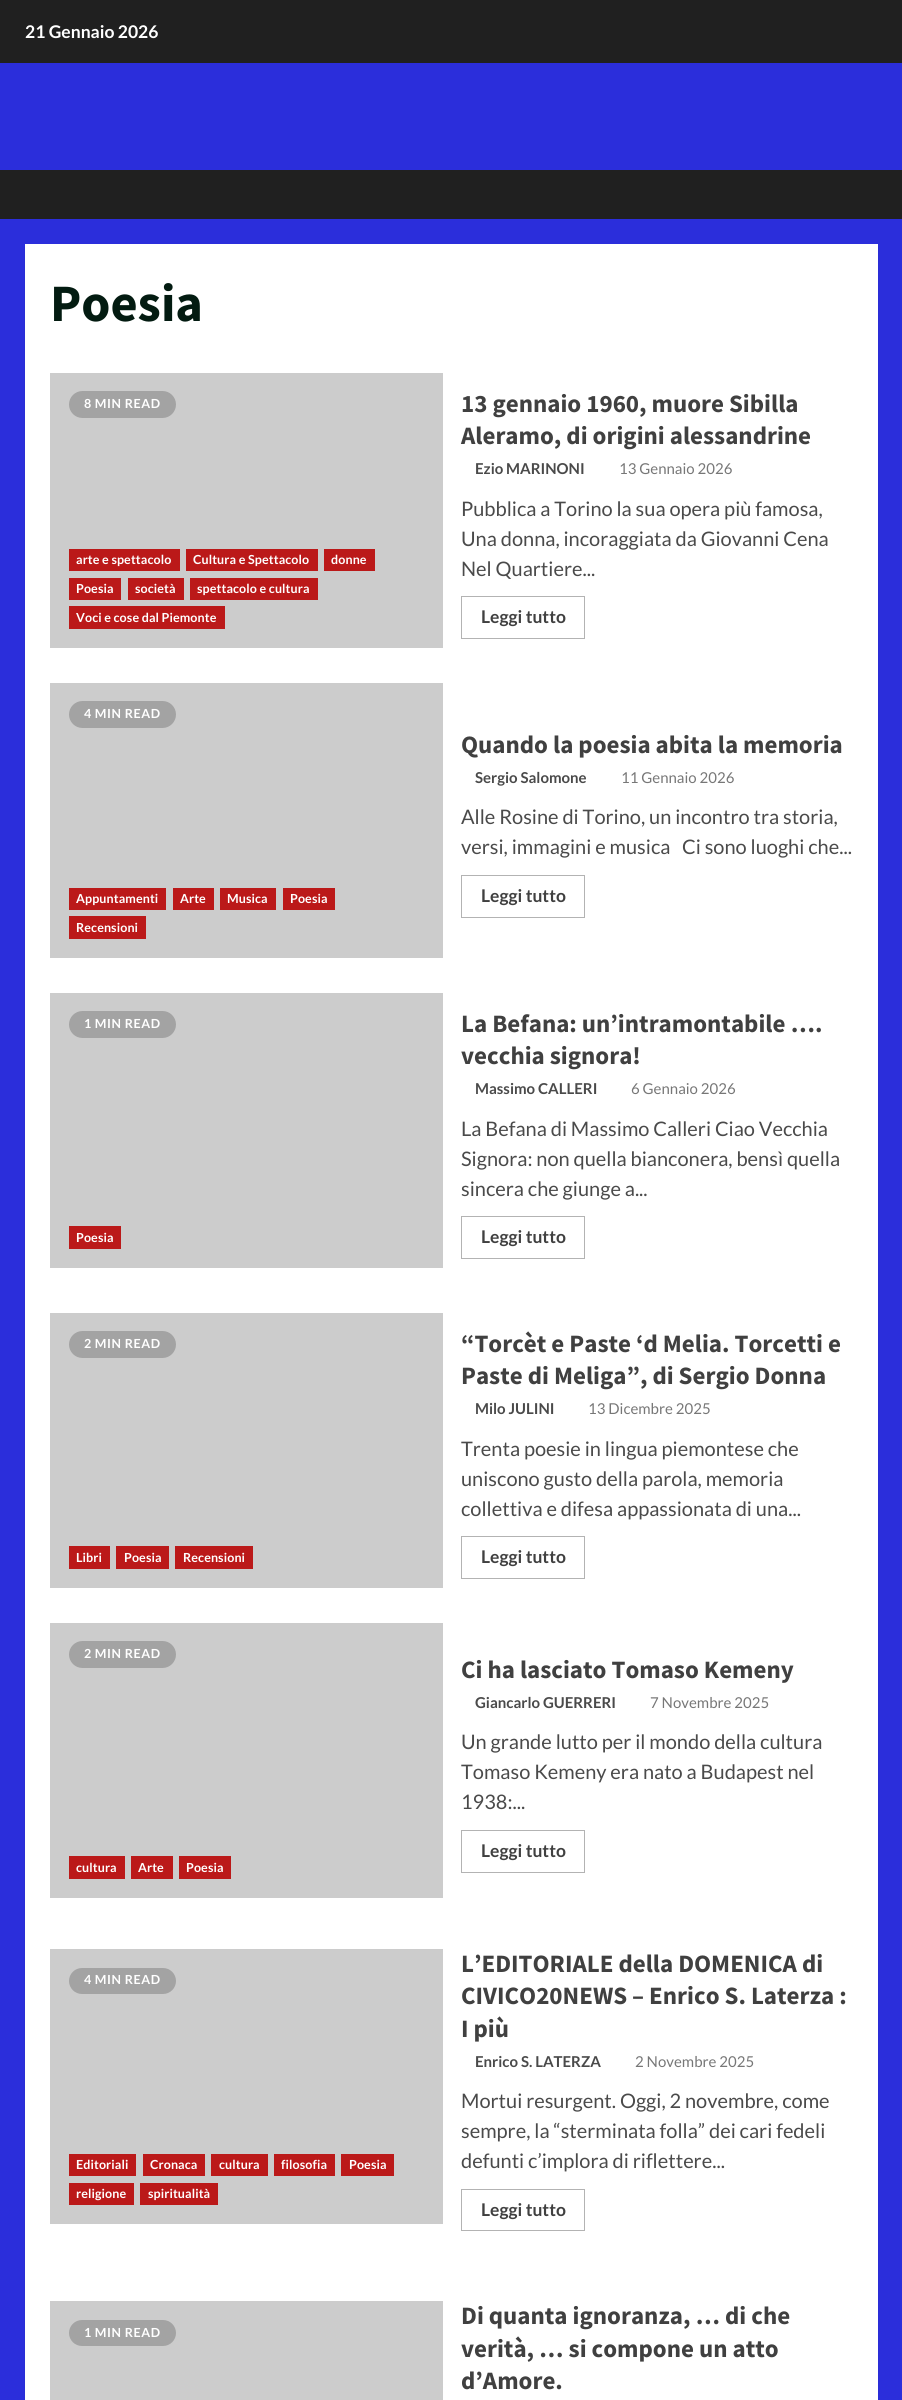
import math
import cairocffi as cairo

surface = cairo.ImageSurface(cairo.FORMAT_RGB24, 902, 2400)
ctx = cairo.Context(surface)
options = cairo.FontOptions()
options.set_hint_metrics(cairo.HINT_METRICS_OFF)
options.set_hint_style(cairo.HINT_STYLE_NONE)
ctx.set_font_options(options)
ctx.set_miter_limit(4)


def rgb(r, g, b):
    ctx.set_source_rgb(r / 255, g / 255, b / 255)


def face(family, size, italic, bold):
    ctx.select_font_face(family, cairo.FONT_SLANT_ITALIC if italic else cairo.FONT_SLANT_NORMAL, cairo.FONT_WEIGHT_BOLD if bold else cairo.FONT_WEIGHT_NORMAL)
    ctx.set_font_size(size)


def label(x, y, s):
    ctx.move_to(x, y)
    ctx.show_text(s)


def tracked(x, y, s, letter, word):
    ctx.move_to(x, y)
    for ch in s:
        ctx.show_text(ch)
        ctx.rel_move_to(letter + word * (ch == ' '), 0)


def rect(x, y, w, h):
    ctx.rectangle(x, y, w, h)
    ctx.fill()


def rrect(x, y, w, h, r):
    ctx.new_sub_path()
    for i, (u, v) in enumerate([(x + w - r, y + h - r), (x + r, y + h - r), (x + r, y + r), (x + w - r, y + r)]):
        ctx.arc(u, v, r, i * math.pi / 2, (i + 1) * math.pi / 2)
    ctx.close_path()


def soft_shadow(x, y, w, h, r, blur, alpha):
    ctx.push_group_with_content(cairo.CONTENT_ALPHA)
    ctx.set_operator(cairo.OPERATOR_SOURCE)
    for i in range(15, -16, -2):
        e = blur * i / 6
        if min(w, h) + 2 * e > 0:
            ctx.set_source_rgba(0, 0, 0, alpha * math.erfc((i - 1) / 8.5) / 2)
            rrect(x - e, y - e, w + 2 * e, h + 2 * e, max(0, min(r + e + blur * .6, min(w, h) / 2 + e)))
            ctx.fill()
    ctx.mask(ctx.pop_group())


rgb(43, 46, 219)
ctx.paint()
rgb(32, 32, 32)
rect(0, 0, 902, 63)
face('Lato', 17.5, 0, 1)
rgb(255, 255, 255)
label(25, 38, '21 Gennaio 2026')
rgb(32, 32, 32)
rect(0, 170, 902, 49)
rgb(0, 0, 0)
soft_shadow(25, 246, 853, 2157, 0, 1, 0.08)
rgb(255, 255, 255)
rect(25, 244, 853, 2156)
face('Source Sans Pro', 52.5, 0, 1)
rgb(3, 27, 17)
label(50, 321, 'Poesia')
rgb(204, 204, 204)
rect(50, 373, 393, 275)
rgb(163, 163, 163)
rrect(69, 391, 107, 27, 13.5)
ctx.fill()
face('Lato', 12.5, 0, 1)
rgb(255, 255, 255)
tracked(84, 408, '8 MIN READ', 0.6, 0)
rgb(187, 25, 25)
rect(69, 549, 111, 22)
rgb(255, 255, 255)
tracked(76, 564, 'arte e spettacolo', 0.1, 0)
rgb(187, 25, 25)
rect(186, 549, 132, 22)
rgb(255, 255, 255)
tracked(193, 564, 'Cultura e Spettacolo', 0.1, 0)
rgb(187, 25, 25)
rect(324, 549, 51, 22)
rgb(255, 255, 255)
tracked(331, 564, 'donne', 0.1, 0)
rgb(187, 25, 25)
rect(69, 578, 52, 22)
rgb(255, 255, 255)
tracked(76, 593, 'Poesia', 0.1, 0)
rgb(187, 25, 25)
rect(128, 578, 56, 22)
rgb(255, 255, 255)
tracked(135, 593, 'società', 0.1, 0)
rgb(187, 25, 25)
rect(190, 578, 128, 22)
rgb(255, 255, 255)
tracked(197, 593, 'spettacolo e cultura', 0.1, 0)
rgb(187, 25, 25)
rect(69, 606, 156, 23)
rgb(255, 255, 255)
tracked(76, 622, 'Voci e cose dal Piemonte', 0.1, 0)
face('Source Sans Pro', 25, 0, 1)
rgb(64, 64, 64)
label(461, 412, '13 gennaio 1960, muore Sibilla')
label(461, 444, 'Aleramo, di origini alessandrine')
face('Lato', 15, 0, 1)
rgb(74, 74, 74)
label(475, 474, 'Ezio MARINONI')
face('Lato', 15, 0, 0)
rgb(119, 119, 119)
label(619, 474, '13 Gennaio 2026')
face('Lato', 20, 0, 0)
rgb(74, 74, 74)
label(461, 516, 'Pubblica a Torino la sua opera più famosa,')
label(461, 546, 'Una donna, incoraggiata da Giovanni Cena')
label(461, 576, 'Nel Quartiere...')
ctx.rectangle(461.5, 596.5, 123, 42)
rgb(179, 179, 179)
ctx.set_line_width(1)
ctx.stroke()
face('Lato', 17.5, 0, 1)
rgb(64, 64, 64)
label(481, 623, 'Leggi tutto')
rgb(204, 204, 204)
rect(50, 683, 393, 275)
rgb(163, 163, 163)
rrect(69, 701, 107, 27, 13.5)
ctx.fill()
face('Lato', 12.5, 0, 1)
rgb(255, 255, 255)
tracked(84, 718, '4 MIN READ', 0.6, 0)
rgb(187, 25, 25)
rect(69, 888, 97, 22)
rgb(255, 255, 255)
tracked(76, 903, 'Appuntamenti', 0.1, 0)
rgb(187, 25, 25)
rect(173, 888, 41, 22)
rgb(255, 255, 255)
tracked(180, 903, 'Arte', 0.1, 0)
rgb(187, 25, 25)
rect(220, 888, 56, 22)
rgb(255, 255, 255)
tracked(227, 903, 'Musica', 0.1, 0)
rgb(187, 25, 25)
rect(283, 888, 52, 22)
rgb(255, 255, 255)
tracked(290, 903, 'Poesia', 0.1, 0)
rgb(187, 25, 25)
rect(69, 916, 77, 23)
rgb(255, 255, 255)
tracked(76, 932, 'Recensioni', 0.1, 0)
face('Source Sans Pro', 25, 0, 1)
rgb(64, 64, 64)
label(461, 753, 'Quando la poesia abita la memoria')
face('Lato', 15, 0, 1)
rgb(74, 74, 74)
label(475, 783, 'Sergio Salomone')
face('Lato', 15, 0, 0)
rgb(119, 119, 119)
label(621, 783, '11 Gennaio 2026')
face('Lato', 20, 0, 0)
rgb(74, 74, 74)
label(461, 824, 'Alle Rosine di Torino, un incontro tra storia,')
label(461, 854, 'versi, immagini e musica   Ci sono luoghi che...')
ctx.rectangle(461.5, 875.5, 123, 42)
rgb(179, 179, 179)
ctx.stroke()
face('Lato', 17.5, 0, 1)
rgb(64, 64, 64)
label(481, 902, 'Leggi tutto')
rgb(204, 204, 204)
rect(50, 993, 393, 275)
rgb(163, 163, 163)
rrect(69, 1011, 107, 27, 13.5)
ctx.fill()
face('Lato', 12.5, 0, 1)
rgb(255, 255, 255)
tracked(84, 1028, '1 MIN READ', 0.6, 0)
rgb(187, 25, 25)
rect(69, 1226, 52, 23)
rgb(255, 255, 255)
tracked(76, 1242, 'Poesia', 0.1, 0)
face('Source Sans Pro', 25, 0, 1)
rgb(64, 64, 64)
label(461, 1032, 'La Befana: un’intramontabile ….')
label(461, 1064, 'vecchia signora!')
face('Lato', 15, 0, 1)
rgb(74, 74, 74)
label(475, 1094, 'Massimo CALLERI')
face('Lato', 15, 0, 0)
rgb(119, 119, 119)
label(631, 1094, '6 Gennaio 2026')
face('Lato', 20, 0, 0)
rgb(74, 74, 74)
label(461, 1136, 'La Befana di Massimo Calleri Ciao Vecchia')
label(461, 1166, 'Signora: non quella bianconera, bensì quella')
label(461, 1196, 'sincera che giunge a...')
ctx.rectangle(461.5, 1216.5, 123, 42)
rgb(179, 179, 179)
ctx.stroke()
face('Lato', 17.5, 0, 1)
rgb(64, 64, 64)
label(481, 1243, 'Leggi tutto')
rgb(204, 204, 204)
rect(50, 1313, 393, 275)
rgb(163, 163, 163)
rrect(69, 1331, 107, 27, 13.5)
ctx.fill()
face('Lato', 12.5, 0, 1)
rgb(255, 255, 255)
tracked(84, 1348, '2 MIN READ', 0.6, 0)
rgb(187, 25, 25)
rect(69, 1546, 41, 23)
rgb(255, 255, 255)
tracked(76, 1562, 'Libri', 0.1, 0)
rgb(187, 25, 25)
rect(116, 1546, 53, 23)
rgb(255, 255, 255)
tracked(124, 1562, 'Poesia', 0.1, 0)
rgb(187, 25, 25)
rect(175, 1546, 78, 23)
rgb(255, 255, 255)
tracked(183, 1562, 'Recensioni', 0.1, 0)
face('Source Sans Pro', 25, 0, 1)
rgb(64, 64, 64)
label(461, 1352, '“Torcèt e Paste ‘d Melia. Torcetti e')
label(461, 1384, 'Paste di Meliga”, di Sergio Donna')
face('Lato', 15, 0, 1)
rgb(74, 74, 74)
label(475, 1414, 'Milo JULINI')
face('Lato', 15, 0, 0)
rgb(119, 119, 119)
label(588, 1414, '13 Dicembre 2025')
face('Lato', 20, 0, 0)
rgb(74, 74, 74)
label(461, 1456, 'Trenta poesie in lingua piemontese che')
label(461, 1486, 'uniscono gusto della parola, memoria')
label(461, 1516, 'collettiva e difesa appassionata di una...')
ctx.rectangle(461.5, 1536.5, 123, 42)
rgb(179, 179, 179)
ctx.stroke()
face('Lato', 17.5, 0, 1)
rgb(64, 64, 64)
label(481, 1563, 'Leggi tutto')
rgb(204, 204, 204)
rect(50, 1623, 393, 275)
rgb(163, 163, 163)
rrect(69, 1641, 107, 27, 13.5)
ctx.fill()
face('Lato', 12.5, 0, 1)
rgb(255, 255, 255)
tracked(84, 1658, '2 MIN READ', 0.6, 0)
rgb(187, 25, 25)
rect(69, 1856, 56, 23)
rgb(255, 255, 255)
tracked(76, 1872, 'cultura', 0.1, 0)
rgb(187, 25, 25)
rect(131, 1856, 42, 23)
rgb(255, 255, 255)
tracked(138, 1872, 'Arte', 0.1, 0)
rgb(187, 25, 25)
rect(179, 1856, 52, 23)
rgb(255, 255, 255)
tracked(186, 1872, 'Poesia', 0.1, 0)
face('Source Sans Pro', 25, 0, 1)
rgb(64, 64, 64)
label(461, 1678, 'Ci ha lasciato Tomaso Kemeny')
face('Lato', 15, 0, 1)
rgb(74, 74, 74)
label(475, 1708, 'Giancarlo GUERRERI')
face('Lato', 15, 0, 0)
rgb(119, 119, 119)
label(650, 1708, '7 Novembre 2025')
face('Lato', 20, 0, 0)
rgb(74, 74, 74)
label(461, 1749, 'Un grande lutto per il mondo della cultura')
label(461, 1779, 'Tomaso Kemeny era nato a Budapest nel')
label(461, 1809, '1938:...')
ctx.rectangle(461.5, 1830.5, 123, 42)
rgb(179, 179, 179)
ctx.stroke()
face('Lato', 17.5, 0, 1)
rgb(64, 64, 64)
label(481, 1857, 'Leggi tutto')
rgb(204, 204, 204)
rect(50, 1949, 393, 275)
rgb(163, 163, 163)
rrect(69, 1968, 107, 26, 13)
ctx.fill()
face('Lato', 12.5, 0, 1)
rgb(255, 255, 255)
tracked(84, 1984, '4 MIN READ', 0.6, 0)
rgb(187, 25, 25)
rect(69, 2154, 67, 22)
rgb(255, 255, 255)
tracked(76, 2169, 'Editoriali', 0.1, 0)
rgb(187, 25, 25)
rect(143, 2154, 62, 22)
rgb(255, 255, 255)
tracked(150, 2169, 'Cronaca', 0.1, 0)
rgb(187, 25, 25)
rect(211, 2154, 57, 22)
rgb(255, 255, 255)
tracked(219, 2169, 'cultura', 0.1, 0)
rgb(187, 25, 25)
rect(274, 2154, 61, 22)
rgb(255, 255, 255)
tracked(281, 2169, 'filosofia', 0.1, 0)
rgb(187, 25, 25)
rect(341, 2154, 53, 22)
rgb(255, 255, 255)
tracked(349, 2169, 'Poesia', 0.1, 0)
rgb(187, 25, 25)
rect(69, 2183, 65, 22)
rgb(255, 255, 255)
tracked(76, 2198, 'religione', 0.1, 0)
rgb(187, 25, 25)
rect(140, 2183, 78, 22)
rgb(255, 255, 255)
tracked(148, 2198, 'spiritualità', 0.1, 0)
face('Source Sans Pro', 25, 0, 1)
rgb(64, 64, 64)
label(461, 1972, 'L’EDITORIALE della DOMENICA di')
label(461, 2004, 'CIVICO20NEWS – Enrico S. Laterza :')
label(461, 2037, 'I più')
face('Lato', 15, 0, 1)
rgb(74, 74, 74)
label(475, 2067, 'Enrico S. LATERZA')
face('Lato', 15, 0, 0)
rgb(119, 119, 119)
label(635, 2067, '2 Novembre 2025')
face('Lato', 20, 0, 0)
rgb(74, 74, 74)
label(461, 2108, 'Mortui resurgent. Oggi, 2 novembre, come')
label(461, 2138, 'sempre, la “sterminata folla” dei cari fedeli')
label(461, 2168, 'defunti c’implora di riflettere...')
ctx.rectangle(461.5, 2189.5, 123, 41)
rgb(179, 179, 179)
ctx.stroke()
face('Lato', 17.5, 0, 1)
rgb(64, 64, 64)
label(481, 2216, 'Leggi tutto')
rgb(204, 204, 204)
rect(50, 2301, 393, 99)
rgb(163, 163, 163)
rrect(69, 2320, 107, 26, 13)
ctx.fill()
face('Lato', 12.5, 0, 1)
rgb(255, 255, 255)
tracked(84, 2337, '1 MIN READ', 0.6, 0)
face('Source Sans Pro', 25, 0, 1)
rgb(64, 64, 64)
label(461, 2324, 'Di quanta ignoranza, … di che')
label(461, 2357, 'verità, … si compone un atto')
label(461, 2389, 'd’Amore.')
surface.write_to_png('render.png')
